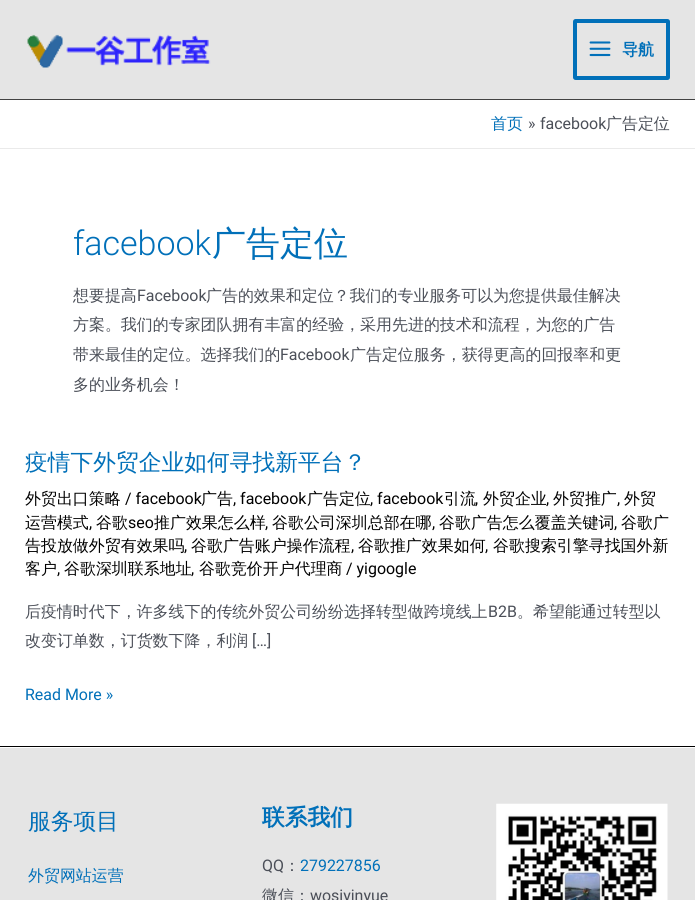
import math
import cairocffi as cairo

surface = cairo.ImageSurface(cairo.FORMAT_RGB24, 695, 900)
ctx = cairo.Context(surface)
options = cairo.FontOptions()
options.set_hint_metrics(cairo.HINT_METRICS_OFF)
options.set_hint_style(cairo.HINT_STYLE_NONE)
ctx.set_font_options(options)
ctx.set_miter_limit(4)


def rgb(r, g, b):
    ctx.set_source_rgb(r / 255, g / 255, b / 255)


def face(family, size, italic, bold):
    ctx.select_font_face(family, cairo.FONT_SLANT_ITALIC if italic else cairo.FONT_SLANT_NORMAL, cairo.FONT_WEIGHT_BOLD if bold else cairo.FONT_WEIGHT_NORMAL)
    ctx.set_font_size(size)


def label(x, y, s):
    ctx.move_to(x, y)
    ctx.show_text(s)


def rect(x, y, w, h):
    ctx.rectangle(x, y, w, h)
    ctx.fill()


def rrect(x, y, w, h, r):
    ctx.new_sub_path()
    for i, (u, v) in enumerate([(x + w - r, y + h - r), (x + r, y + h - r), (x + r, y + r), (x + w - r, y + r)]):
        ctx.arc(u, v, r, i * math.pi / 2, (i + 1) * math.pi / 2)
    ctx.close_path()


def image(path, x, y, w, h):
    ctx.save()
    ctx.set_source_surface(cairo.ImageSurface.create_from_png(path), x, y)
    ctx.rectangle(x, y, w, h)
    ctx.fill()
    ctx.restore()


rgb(255, 255, 255)
ctx.paint()
rgb(229, 229, 229)
rect(0, 0, 695, 99)
rgb(66, 66, 66)
rect(0, 99, 695, 1)
image('image0.png', 27, 34, 184, 34)
rrect(575, 21, 93, 57, 0.5)
rgb(1, 112, 185)
ctx.set_line_width(4)
ctx.stroke()
image('image1.png', 589, 41, 22, 16)
face('WenQuanYi Zen Hei', 15.95, 0, 1)
label(622, 55, '导航')
rgb(234, 234, 234)
rect(0, 148, 695, 1)
face('WenQuanYi Zen Hei Medium', 15.95, 0, 0)
rgb(1, 112, 185)
label(491, 129, '首页')
face('Roboto', 15.95, 0, 0)
rgb(75, 79, 88)
label(528, 129, '»')
label(540, 129, 'facebook')
face('WenQuanYi Zen Hei Medium', 15.95, 0, 0)
label(606, 129, '广告定位')
face('Roboto Light', 34, 0, 0)
rgb(1, 112, 185)
label(73, 255, 'facebook')
face('WenQuanYi Zen Hei Medium', 34, 0, 0)
label(212, 255, '广告定位')
face('WenQuanYi Zen Hei Medium', 15.95, 0, 0)
rgb(75, 79, 88)
label(73, 301, '想要提高')
face('Roboto', 15.95, 0, 0)
label(137, 301, 'Facebook')
face('WenQuanYi Zen Hei Medium', 15.95, 0, 0)
label(206, 301, '广告的效果和定位？我们的专业服务可以为您提供最佳解决')
label(73, 330, '方案。我们的专家团队拥有丰富的经验，采用先进的技术和流程，为您的广告')
label(73, 360, '带来最佳的定位。选择我们的')
face('Roboto', 15.95, 0, 0)
label(280, 360, 'Facebook')
face('WenQuanYi Zen Hei Medium', 15.95, 0, 0)
label(350, 360, '广告定位服务，获得更高的回报率和更')
label(73, 390, '多的业务机会！')
face('WenQuanYi Zen Hei Medium', 22.75, 0, 0)
rgb(1, 112, 185)
label(25, 470, '疫情下外贸企业如何寻找新平台？')
face('WenQuanYi Zen Hei Medium', 15.95, 0, 0)
rgb(0, 0, 0)
label(25, 504, '外贸出口策略')
face('Roboto', 15.95, 0, 0)
label(125, 504, '/ facebook')
face('WenQuanYi Zen Hei Medium', 15.95, 0, 0)
label(201, 504, '广告')
face('Roboto', 15.95, 0, 0)
label(233, 504, ', facebook')
face('WenQuanYi Zen Hei Medium', 15.95, 0, 0)
label(307, 504, '广告定位')
face('Roboto', 15.95, 0, 0)
label(370, 504, ', facebook')
face('WenQuanYi Zen Hei Medium', 15.95, 0, 0)
label(444, 504, '引流')
face('Roboto', 15.95, 0, 0)
label(475, 504, ',')
face('WenQuanYi Zen Hei Medium', 15.95, 0, 0)
label(483, 504, '外贸企业')
face('Roboto', 15.95, 0, 0)
label(546, 504, ',')
face('WenQuanYi Zen Hei Medium', 15.95, 0, 0)
label(553, 504, '外贸推广')
face('Roboto', 15.95, 0, 0)
label(617, 504, ',')
face('WenQuanYi Zen Hei Medium', 15.95, 0, 0)
label(624, 504, '外贸')
label(25, 528, '运营模式')
face('Roboto', 15.95, 0, 0)
label(89, 528, ',')
face('WenQuanYi Zen Hei Medium', 15.95, 0, 0)
label(96, 528, '谷歌')
face('Roboto', 15.95, 0, 0)
label(128, 528, 'seo')
face('WenQuanYi Zen Hei Medium', 15.95, 0, 0)
label(154, 528, '推广效果怎么样')
face('Roboto', 15.95, 0, 0)
label(265, 528, ',')
face('WenQuanYi Zen Hei Medium', 15.95, 0, 0)
label(272, 528, '谷歌公司深圳总部在哪')
face('Roboto', 15.95, 0, 0)
label(432, 528, ',')
face('WenQuanYi Zen Hei Medium', 15.95, 0, 0)
label(439, 528, '谷歌广告怎么覆盖关键词')
face('Roboto', 15.95, 0, 0)
label(614, 528, ',')
face('WenQuanYi Zen Hei Medium', 15.95, 0, 0)
label(621, 528, '谷歌广')
label(25, 551, '告投放做外贸有效果吗')
face('Roboto', 15.95, 0, 0)
label(184, 551, ',')
face('WenQuanYi Zen Hei Medium', 15.95, 0, 0)
label(191, 551, '谷歌广告账户操作流程')
face('Roboto', 15.95, 0, 0)
label(351, 551, ',')
face('WenQuanYi Zen Hei Medium', 15.95, 0, 0)
label(358, 551, '谷歌推广效果如何')
face('Roboto', 15.95, 0, 0)
label(485, 551, ',')
face('WenQuanYi Zen Hei Medium', 15.95, 0, 0)
label(493, 551, '谷歌搜索引擎寻找国外新')
label(25, 574, '客户')
face('Roboto', 15.95, 0, 0)
label(57, 574, ',')
face('WenQuanYi Zen Hei Medium', 15.95, 0, 0)
label(64, 574, '谷歌深圳联系地址')
face('Roboto', 15.95, 0, 0)
label(191, 574, ',')
face('WenQuanYi Zen Hei Medium', 15.95, 0, 0)
label(199, 574, '谷歌竞价开户代理商')
face('Roboto', 15.95, 0, 0)
label(346, 574, '/ yigoogle')
face('WenQuanYi Zen Hei Medium', 15.95, 0, 0)
rgb(75, 79, 88)
label(25, 617, '后疫情时代下，许多线下的传统外贸公司纷纷选择转型做跨境线上')
face('Roboto', 15.95, 0, 0)
label(488, 617, 'B2B')
face('WenQuanYi Zen Hei Medium', 15.95, 0, 0)
label(517, 617, '。希望能通过转型以')
label(25, 646, '改变订单数，订货数下降，利润')
face('Roboto', 15.95, 0, 0)
label(252, 646, '[…]')
rgb(1, 112, 185)
label(25, 700, 'Read More »')
rgb(229, 229, 229)
rect(0, 748, 695, 152)
rgb(0, 0, 0)
rect(0, 746, 695, 1)
face('WenQuanYi Zen Hei Medium', 22.75, 0, 0)
rgb(1, 112, 185)
label(28, 829, '服务项目')
face('WenQuanYi Zen Hei Medium', 15.95, 0, 0)
label(28, 881, '外贸网站运营')
face('WenQuanYi Zen Hei', 22.75, 0, 1)
label(262, 825, '联系我们')
face('Roboto', 15.95, 0, 0)
rgb(75, 79, 88)
label(262, 871, 'QQ')
face('WenQuanYi Zen Hei Medium', 15.95, 0, 0)
label(284, 871, '：')
face('Roboto', 15.95, 0, 0)
rgb(1, 112, 185)
label(300, 871, '279227856')
face('WenQuanYi Zen Hei Medium', 15.95, 0, 0)
rgb(75, 79, 88)
label(262, 901, '微信：')
face('Roboto', 15.95, 0, 0)
label(310, 901, 'wosiyinyue')
image('image2.png', 496, 803, 172, 97)
surface.write_to_png('render.png')
